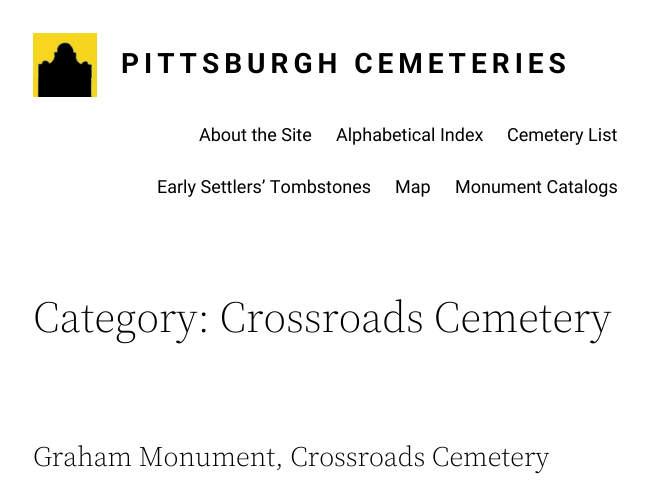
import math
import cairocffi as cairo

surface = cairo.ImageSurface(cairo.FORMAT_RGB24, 650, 487)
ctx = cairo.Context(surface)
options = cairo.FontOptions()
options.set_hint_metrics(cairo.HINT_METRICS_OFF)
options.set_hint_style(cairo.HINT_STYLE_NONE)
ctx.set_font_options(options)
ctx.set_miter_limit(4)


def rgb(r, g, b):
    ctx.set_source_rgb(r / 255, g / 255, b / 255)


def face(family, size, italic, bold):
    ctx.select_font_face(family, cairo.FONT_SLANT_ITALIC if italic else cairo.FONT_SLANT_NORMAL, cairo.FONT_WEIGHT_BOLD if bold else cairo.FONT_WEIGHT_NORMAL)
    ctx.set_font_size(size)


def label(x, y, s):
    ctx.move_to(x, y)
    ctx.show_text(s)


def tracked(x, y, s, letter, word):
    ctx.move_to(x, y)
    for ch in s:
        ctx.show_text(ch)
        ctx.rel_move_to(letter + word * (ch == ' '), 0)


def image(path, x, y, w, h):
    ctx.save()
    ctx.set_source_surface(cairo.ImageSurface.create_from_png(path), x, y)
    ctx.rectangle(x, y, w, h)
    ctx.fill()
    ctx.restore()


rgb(255, 255, 255)
ctx.paint()
image('image0.png', 33, 33, 64, 64)
face('Roboto', 28, 0, 1)
rgb(0, 0, 0)
tracked(121, 73, 'PITTSBURGH CEMETERIES', 5, 0)
face('Roboto', 18, 0, 0)
label(199, 141, 'About the Site')
label(336, 141, 'Alphabetical Index')
label(507, 141, 'Cemetery List')
label(157, 193, 'Early Settlers’ Tombstones')
label(395, 193, 'Map')
label(455, 193, 'Monument Catalogs')
face('Source Serif 4 Light', 44, 0, 0)
label(33, 332, 'Category: Crossroads Cemetery')
face('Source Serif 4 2 Light', 28, 0, 0)
label(33, 466, 'Graham Monument, Crossroads Cemetery')
surface.write_to_png('render.png')
